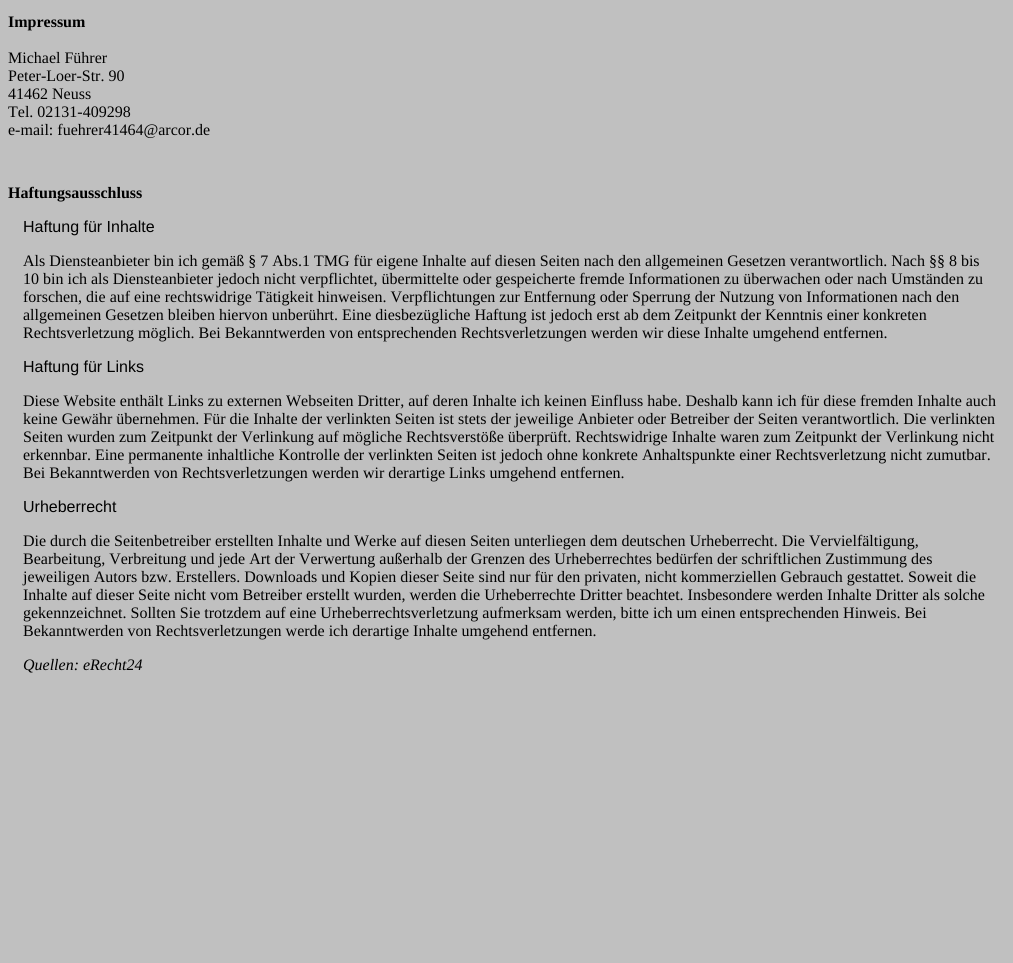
import math
import cairocffi as cairo

surface = cairo.ImageSurface(cairo.FORMAT_RGB24, 1013, 963)
ctx = cairo.Context(surface)
options = cairo.FontOptions()
options.set_hint_metrics(cairo.HINT_METRICS_OFF)
options.set_hint_style(cairo.HINT_STYLE_NONE)
ctx.set_font_options(options)
ctx.set_miter_limit(4)


def rgb(r, g, b):
    ctx.set_source_rgb(r / 255, g / 255, b / 255)


def face(family, size, italic, bold):
    ctx.select_font_face(family, cairo.FONT_SLANT_ITALIC if italic else cairo.FONT_SLANT_NORMAL, cairo.FONT_WEIGHT_BOLD if bold else cairo.FONT_WEIGHT_NORMAL)
    ctx.set_font_size(size)


def label(x, y, s):
    ctx.move_to(x, y)
    ctx.show_text(s)


rgb(192, 192, 192)
ctx.paint()
face('Liberation Serif', 16, 0, 1)
rgb(0, 0, 0)
label(8, 27, 'Impressum')
face('Liberation Serif', 16, 0, 0)
label(8, 63, 'Michael Führer')
label(8, 81, 'Peter-Loer-Str. 90')
label(8, 99, '41462 Neuss')
label(8, 117, 'Tel. 02131-409298')
label(8, 135, 'e-mail: fuehrer41464@arcor.de')
face('Liberation Serif', 16, 0, 1)
label(8, 198, 'Haftungsausschluss')
face('Liberation Sans', 16, 0, 0)
label(23, 232, 'Haftung für Inhalte')
face('Liberation Serif', 16, 0, 0)
label(23, 266, 'Als Diensteanbieter bin ich gemäß § 7 Abs.1 TMG für eigene Inhalte auf diesen Seiten nach den allgemeinen Gesetzen verantwortlich. Nach §§ 8 bis')
label(23, 284, '10 bin ich als Diensteanbieter jedoch nicht verpflichtet, übermittelte oder gespeicherte fremde Informationen zu überwachen oder nach Umständen zu')
label(23, 302, 'forschen, die auf eine rechtswidrige Tätigkeit hinweisen. Verpflichtungen zur Entfernung oder Sperrung der Nutzung von Informationen nach den')
label(23, 320, 'allgemeinen Gesetzen bleiben hiervon unberührt. Eine diesbezügliche Haftung ist jedoch erst ab dem Zeitpunkt der Kenntnis einer konkreten')
label(23, 338, 'Rechtsverletzung möglich. Bei Bekanntwerden von entsprechenden Rechtsverletzungen werden wir diese Inhalte umgehend entfernen.')
face('Liberation Sans', 16, 0, 0)
label(23, 372, 'Haftung für Links')
face('Liberation Serif', 16, 0, 0)
label(23, 406, 'Diese Website enthält Links zu externen Webseiten Dritter, auf deren Inhalte ich keinen Einfluss habe. Deshalb kann ich für diese fremden Inhalte auch')
label(23, 424, 'keine Gewähr übernehmen. Für die Inhalte der verlinkten Seiten ist stets der jeweilige Anbieter oder Betreiber der Seiten verantwortlich. Die verlinkten')
label(23, 442, 'Seiten wurden zum Zeitpunkt der Verlinkung auf mögliche Rechtsverstöße überprüft. Rechtswidrige Inhalte waren zum Zeitpunkt der Verlinkung nicht')
label(23, 460, 'erkennbar. Eine permanente inhaltliche Kontrolle der verlinkten Seiten ist jedoch ohne konkrete Anhaltspunkte einer Rechtsverletzung nicht zumutbar.')
label(23, 478, 'Bei Bekanntwerden von Rechtsverletzungen werden wir derartige Links umgehend entfernen.')
face('Liberation Sans', 16, 0, 0)
label(23, 512, 'Urheberrecht')
face('Liberation Serif', 16, 0, 0)
label(23, 546, 'Die durch die Seitenbetreiber erstellten Inhalte und Werke auf diesen Seiten unterliegen dem deutschen Urheberrecht. Die Vervielfältigung,')
label(23, 564, 'Bearbeitung, Verbreitung und jede Art der Verwertung außerhalb der Grenzen des Urheberrechtes bedürfen der schriftlichen Zustimmung des')
label(23, 582, 'jeweiligen Autors bzw. Erstellers. Downloads und Kopien dieser Seite sind nur für den privaten, nicht kommerziellen Gebrauch gestattet. Soweit die')
label(23, 600, 'Inhalte auf dieser Seite nicht vom Betreiber erstellt wurden, werden die Urheberrechte Dritter beachtet. Insbesondere werden Inhalte Dritter als solche')
label(23, 618, 'gekennzeichnet. Sollten Sie trotzdem auf eine Urheberrechtsverletzung aufmerksam werden, bitte ich um einen entsprechenden Hinweis. Bei')
label(23, 636, 'Bekanntwerden von Rechtsverletzungen werde ich derartige Inhalte umgehend entfernen.')
face('Liberation Serif', 16, 1, 0)
label(23, 670, 'Quellen: eRecht24')
surface.write_to_png('render.png')
